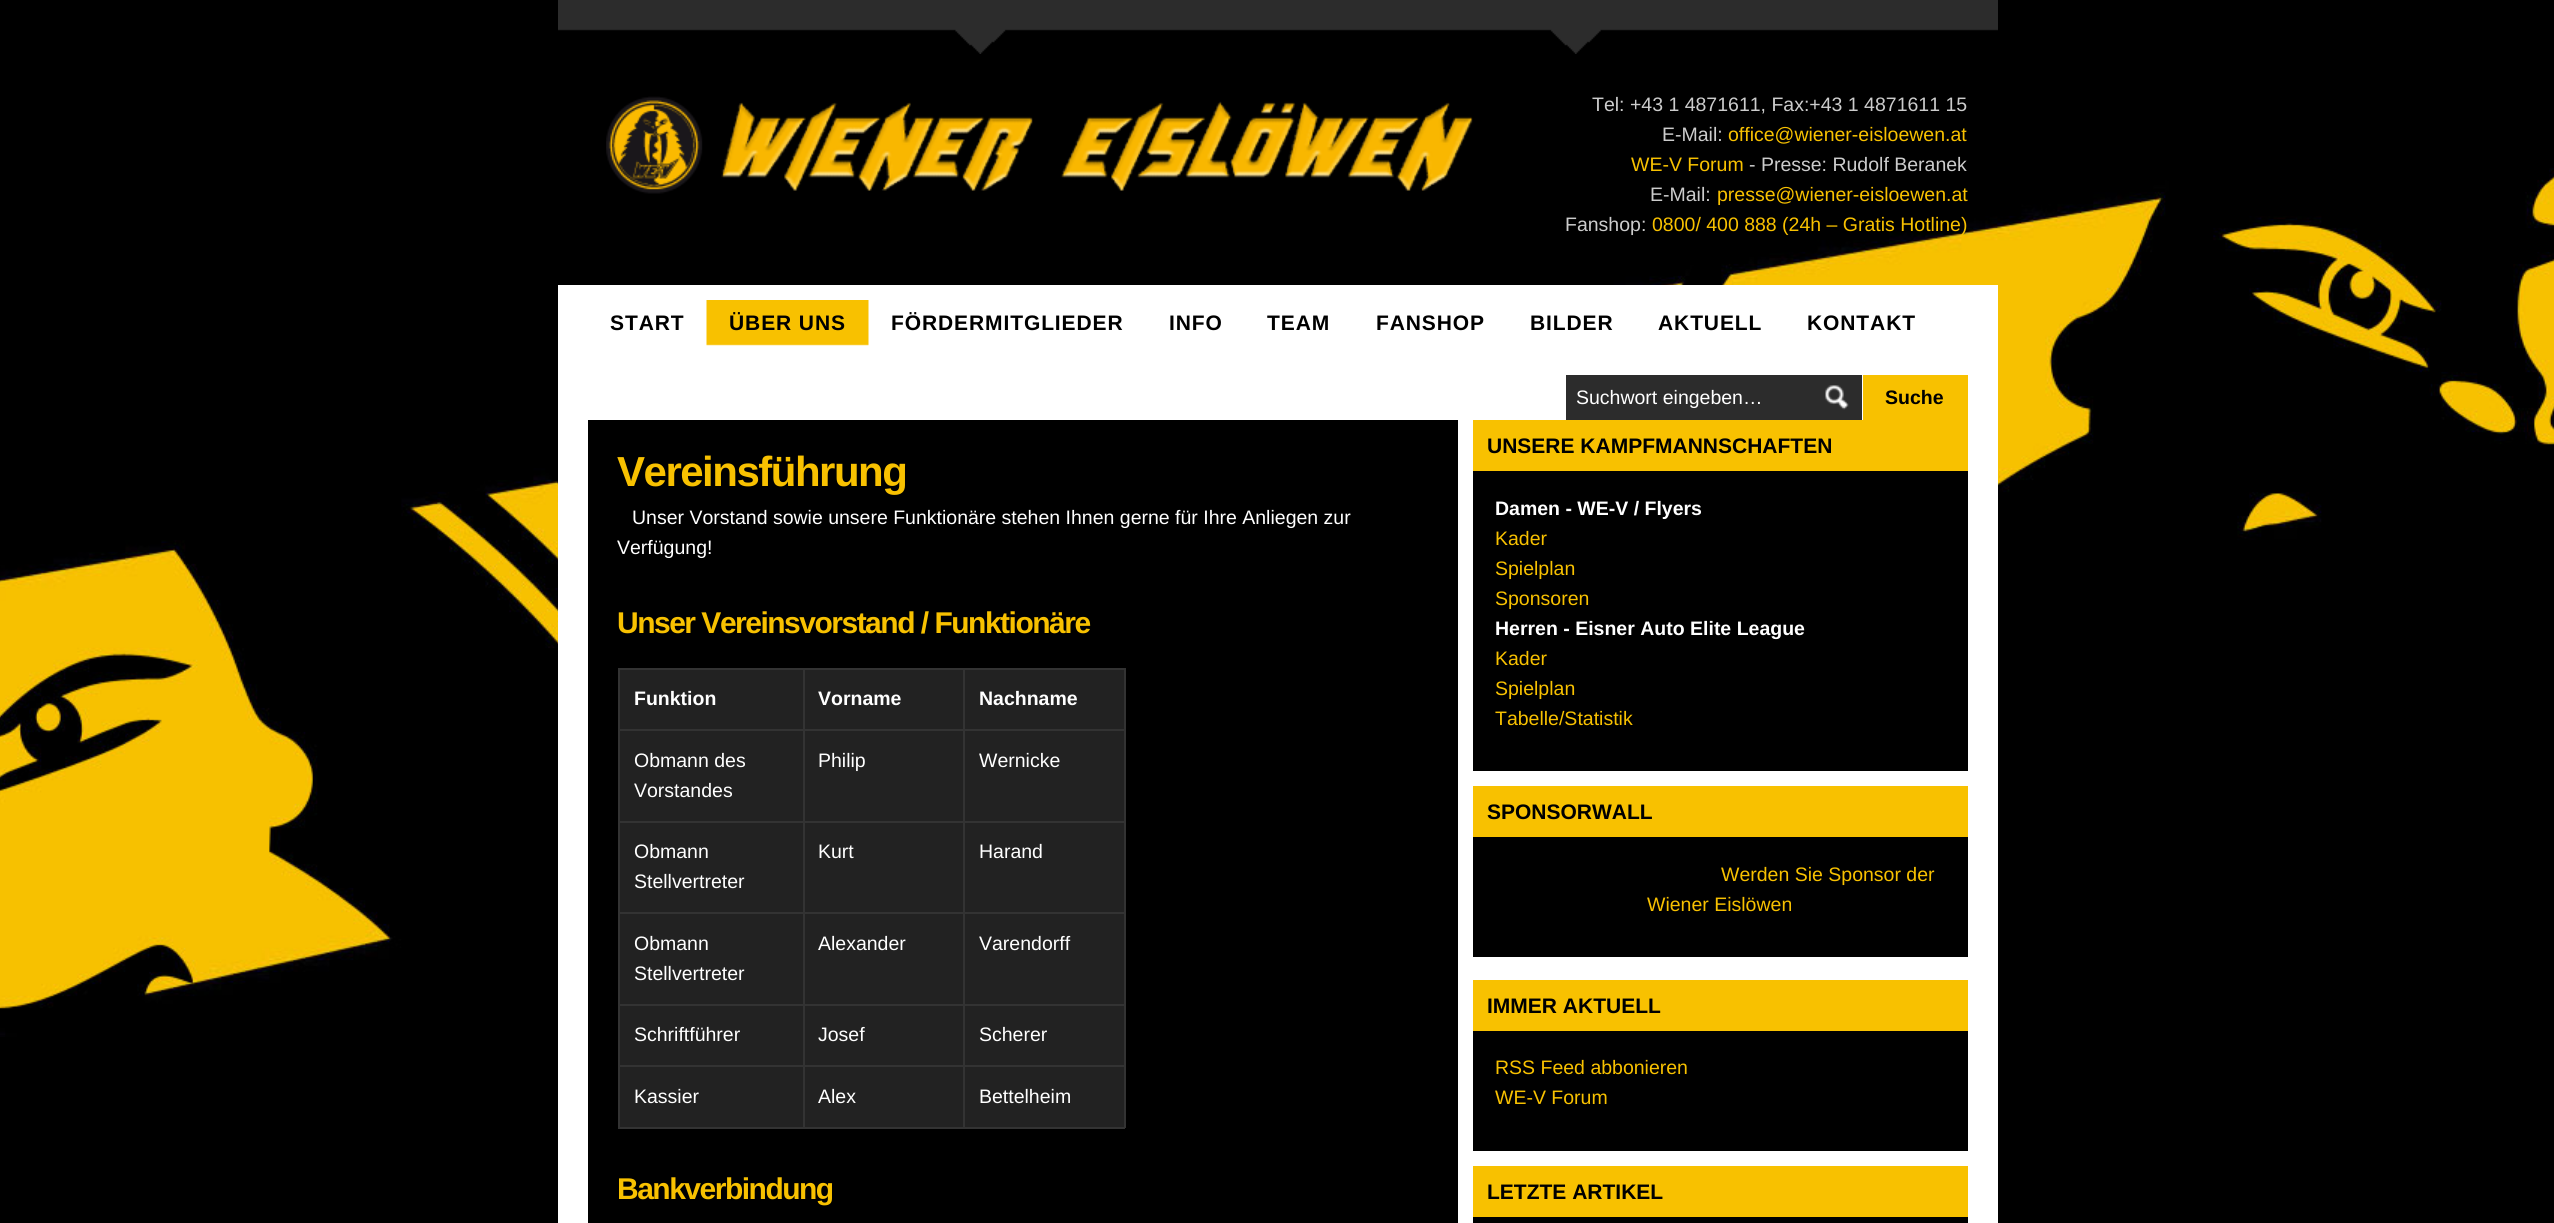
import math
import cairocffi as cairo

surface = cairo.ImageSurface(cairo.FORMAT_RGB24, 2554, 1223)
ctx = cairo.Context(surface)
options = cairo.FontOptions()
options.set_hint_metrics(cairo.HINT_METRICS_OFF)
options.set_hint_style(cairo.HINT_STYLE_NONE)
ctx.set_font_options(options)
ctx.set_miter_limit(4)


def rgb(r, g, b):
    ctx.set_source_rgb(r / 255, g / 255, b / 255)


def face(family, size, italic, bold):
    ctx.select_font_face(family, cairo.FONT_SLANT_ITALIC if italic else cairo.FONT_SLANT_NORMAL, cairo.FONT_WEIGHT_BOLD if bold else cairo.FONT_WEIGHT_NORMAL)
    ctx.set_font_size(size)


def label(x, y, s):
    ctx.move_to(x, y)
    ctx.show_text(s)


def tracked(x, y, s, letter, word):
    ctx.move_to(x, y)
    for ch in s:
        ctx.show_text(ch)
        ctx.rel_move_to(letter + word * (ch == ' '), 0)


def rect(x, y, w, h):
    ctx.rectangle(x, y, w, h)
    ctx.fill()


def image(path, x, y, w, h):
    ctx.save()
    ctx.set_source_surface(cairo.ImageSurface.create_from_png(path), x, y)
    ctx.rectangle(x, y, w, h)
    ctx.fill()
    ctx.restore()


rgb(0, 0, 0)
ctx.paint()
image('image0.png', 0, 168, 2554, 869)
image('image1.png', 558, 0, 1440, 54)
image('image2.png', 606, 96, 867, 98)
face('Liberation Sans', 19.5, 0, 0)
rgb(204, 204, 204)
label(1592, 111, 'Tel: +43 1 4871611, Fax:+43 1 4871611 15')
label(1662, 141, 'E-Mail:')
rgb(248, 193, 0)
label(1728, 141, 'office@wiener-eisloewen.at')
label(1631, 171, 'WE-V Forum')
rgb(204, 204, 204)
label(1749, 171, '- Presse: Rudolf Beranek')
label(1650, 201, 'E-Mail:')
rgb(248, 193, 0)
label(1717, 201, 'presse@wiener-eisloewen.at')
rgb(204, 204, 204)
label(1565, 231, 'Fanshop:')
rgb(248, 193, 0)
label(1652, 231, '0800/ 400 888 (24h – Gratis Hotline)')
rgb(255, 255, 255)
rect(558, 285, 1440, 938)
face('Liberation Sans', 21, 0, 1)
rgb(0, 0, 0)
tracked(610, 330, 'START', 0.9, 0)
image('image3.png', 706, 300, 163, 46)
tracked(729, 330, 'ÜBER UNS', 0.9, 0)
tracked(891, 330, 'FÖRDERMITGLIEDER', 0.9, 0)
tracked(1169, 330, 'INFO', 0.9, 0)
tracked(1267, 330, 'TEAM', 0.9, 0)
tracked(1376, 330, 'FANSHOP', 0.9, 0)
tracked(1530, 330, 'BILDER', 0.9, 0)
tracked(1658, 330, 'AKTUELL', 0.9, 0)
tracked(1807, 330, 'KONTAKT', 0.9, 0)
rgb(44, 44, 44)
rect(1566, 375, 296, 45)
image('image4.png', 1825, 385, 24, 25)
face('Liberation Sans', 19.5, 0, 0)
rgb(255, 255, 255)
label(1576, 404, 'Suchwort eingeben…')
rgb(248, 193, 0)
rect(1863, 375, 105, 45)
face('Liberation Sans', 19.5, 0, 1)
rgb(0, 0, 0)
label(1885, 404, 'Suche')
rect(588, 420, 870, 803)
face('Liberation Sans', 42, 0, 1)
rgb(248, 193, 0)
tracked(617, 486, 'Vereinsführung', -1.5, 0)
face('Liberation Sans', 19.5, 0, 0)
rgb(255, 255, 255)
label(632, 524, 'Unser Vorstand sowie unsere Funktionäre stehen Ihnen gerne für Ihre Anliegen zur')
label(617, 554, 'Verfügung!')
face('Liberation Sans', 30, 0, 1)
rgb(248, 193, 0)
tracked(617, 633, 'Unser Vereinsvorstand / Funktionäre', -1.5, 0)
rgb(34, 34, 34)
rect(620, 670, 504, 59)
rgb(51, 51, 51)
rect(963, 668, 162, 2)
rect(963, 729, 162, 2)
rgb(34, 34, 34)
rect(620, 731, 504, 90)
rgb(51, 51, 51)
rect(963, 821, 162, 2)
rgb(34, 34, 34)
rect(620, 823, 504, 89)
rgb(51, 51, 51)
rect(963, 912, 162, 2)
rgb(34, 34, 34)
rect(620, 914, 504, 90)
rgb(51, 51, 51)
rect(963, 1004, 162, 2)
rgb(34, 34, 34)
rect(620, 1006, 504, 59)
rgb(51, 51, 51)
rect(963, 1065, 162, 2)
rgb(34, 34, 34)
rect(620, 1067, 504, 60)
rgb(51, 51, 51)
rect(1124, 1065, 2, 63)
rect(963, 1127, 162, 2)
rect(963, 1065, 2, 63)
rect(803, 1065, 162, 2)
rect(963, 1004, 2, 63)
rect(803, 1004, 162, 2)
rect(963, 912, 2, 93)
rect(803, 912, 162, 2)
rect(963, 821, 2, 93)
rect(803, 821, 162, 2)
rect(963, 729, 2, 93)
rect(803, 729, 162, 2)
rect(963, 668, 2, 63)
rect(803, 668, 162, 2)
rect(803, 1127, 162, 2)
rect(803, 1065, 2, 63)
rect(618, 1065, 186, 2)
rect(803, 1004, 2, 63)
rect(618, 1004, 186, 2)
rect(803, 912, 2, 93)
rect(618, 912, 186, 2)
rect(803, 821, 2, 93)
rect(618, 821, 186, 2)
rect(803, 729, 2, 93)
rect(618, 729, 186, 2)
rect(803, 668, 2, 63)
rect(618, 668, 186, 2)
rect(618, 1127, 186, 2)
rect(618, 1065, 2, 63)
rect(618, 1004, 2, 63)
rect(618, 912, 2, 93)
rect(618, 821, 2, 93)
rect(618, 729, 2, 93)
rect(618, 668, 2, 63)
face('Liberation Sans', 19.5, 0, 1)
rgb(255, 255, 255)
label(634, 705, 'Funktion')
label(818, 705, 'Vorname')
rgb(51, 51, 51)
rect(1124, 1004, 2, 63)
rect(1124, 912, 2, 93)
rect(1124, 821, 2, 93)
rect(1124, 729, 2, 93)
rect(1124, 668, 2, 63)
rgb(255, 255, 255)
label(979, 705, 'Nachname')
face('Liberation Sans', 19.5, 0, 0)
label(634, 767, 'Obmann des')
label(634, 797, 'Vorstandes')
label(818, 767, 'Philip')
label(979, 767, 'Wernicke')
label(634, 858, 'Obmann')
label(634, 888, 'Stellvertreter')
label(818, 858, 'Kurt')
label(979, 858, 'Harand')
label(634, 950, 'Obmann')
label(634, 980, 'Stellvertreter')
label(818, 950, 'Alexander')
label(979, 950, 'Varendorff')
label(634, 1041, 'Schriftführer')
label(818, 1041, 'Josef')
label(979, 1041, 'Scherer')
label(634, 1103, 'Kassier')
label(818, 1103, 'Alex')
label(979, 1103, 'Bettelheim')
face('Liberation Sans', 30, 0, 1)
rgb(248, 193, 0)
tracked(617, 1199, 'Bankverbindung', -1.5, 0)
rect(1473, 420, 495, 51)
face('Liberation Sans', 21, 0, 1)
rgb(0, 0, 0)
label(1487, 453, 'UNSERE KAMPFMANNSCHAFTEN')
rect(1473, 471, 495, 300)
face('Liberation Sans', 19.5, 0, 1)
rgb(255, 255, 255)
label(1495, 515, 'Damen - WE-V / Flyers')
face('Liberation Sans', 19.5, 0, 0)
rgb(248, 193, 0)
label(1495, 545, 'Kader')
label(1495, 575, 'Spielplan')
label(1495, 605, 'Sponsoren')
face('Liberation Sans', 19.5, 0, 1)
rgb(255, 255, 255)
label(1495, 635, 'Herren - Eisner Auto Elite League')
face('Liberation Sans', 19.5, 0, 0)
rgb(248, 193, 0)
label(1495, 665, 'Kader')
label(1495, 695, 'Spielplan')
label(1495, 725, 'Tabelle/Statistik')
rect(1473, 786, 495, 51)
face('Liberation Sans', 21, 0, 1)
rgb(0, 0, 0)
label(1487, 819, 'SPONSORWALL')
rect(1473, 837, 495, 120)
face('Liberation Sans', 19.5, 0, 0)
rgb(248, 193, 0)
label(1721, 881, 'Werden Sie Sponsor der')
label(1647, 911, 'Wiener Eislöwen')
rect(1473, 980, 495, 51)
face('Liberation Sans', 21, 0, 1)
rgb(0, 0, 0)
label(1487, 1013, 'IMMER AKTUELL')
rect(1473, 1031, 495, 120)
face('Liberation Sans', 19.5, 0, 0)
rgb(248, 193, 0)
label(1495, 1074, 'RSS Feed abbonieren')
label(1495, 1104, 'WE-V Forum')
rect(1473, 1166, 495, 51)
face('Liberation Sans', 21, 0, 1)
rgb(0, 0, 0)
label(1487, 1199, 'LETZTE ARTIKEL')
rect(1473, 1217, 495, 6)
surface.write_to_png('render.png')
